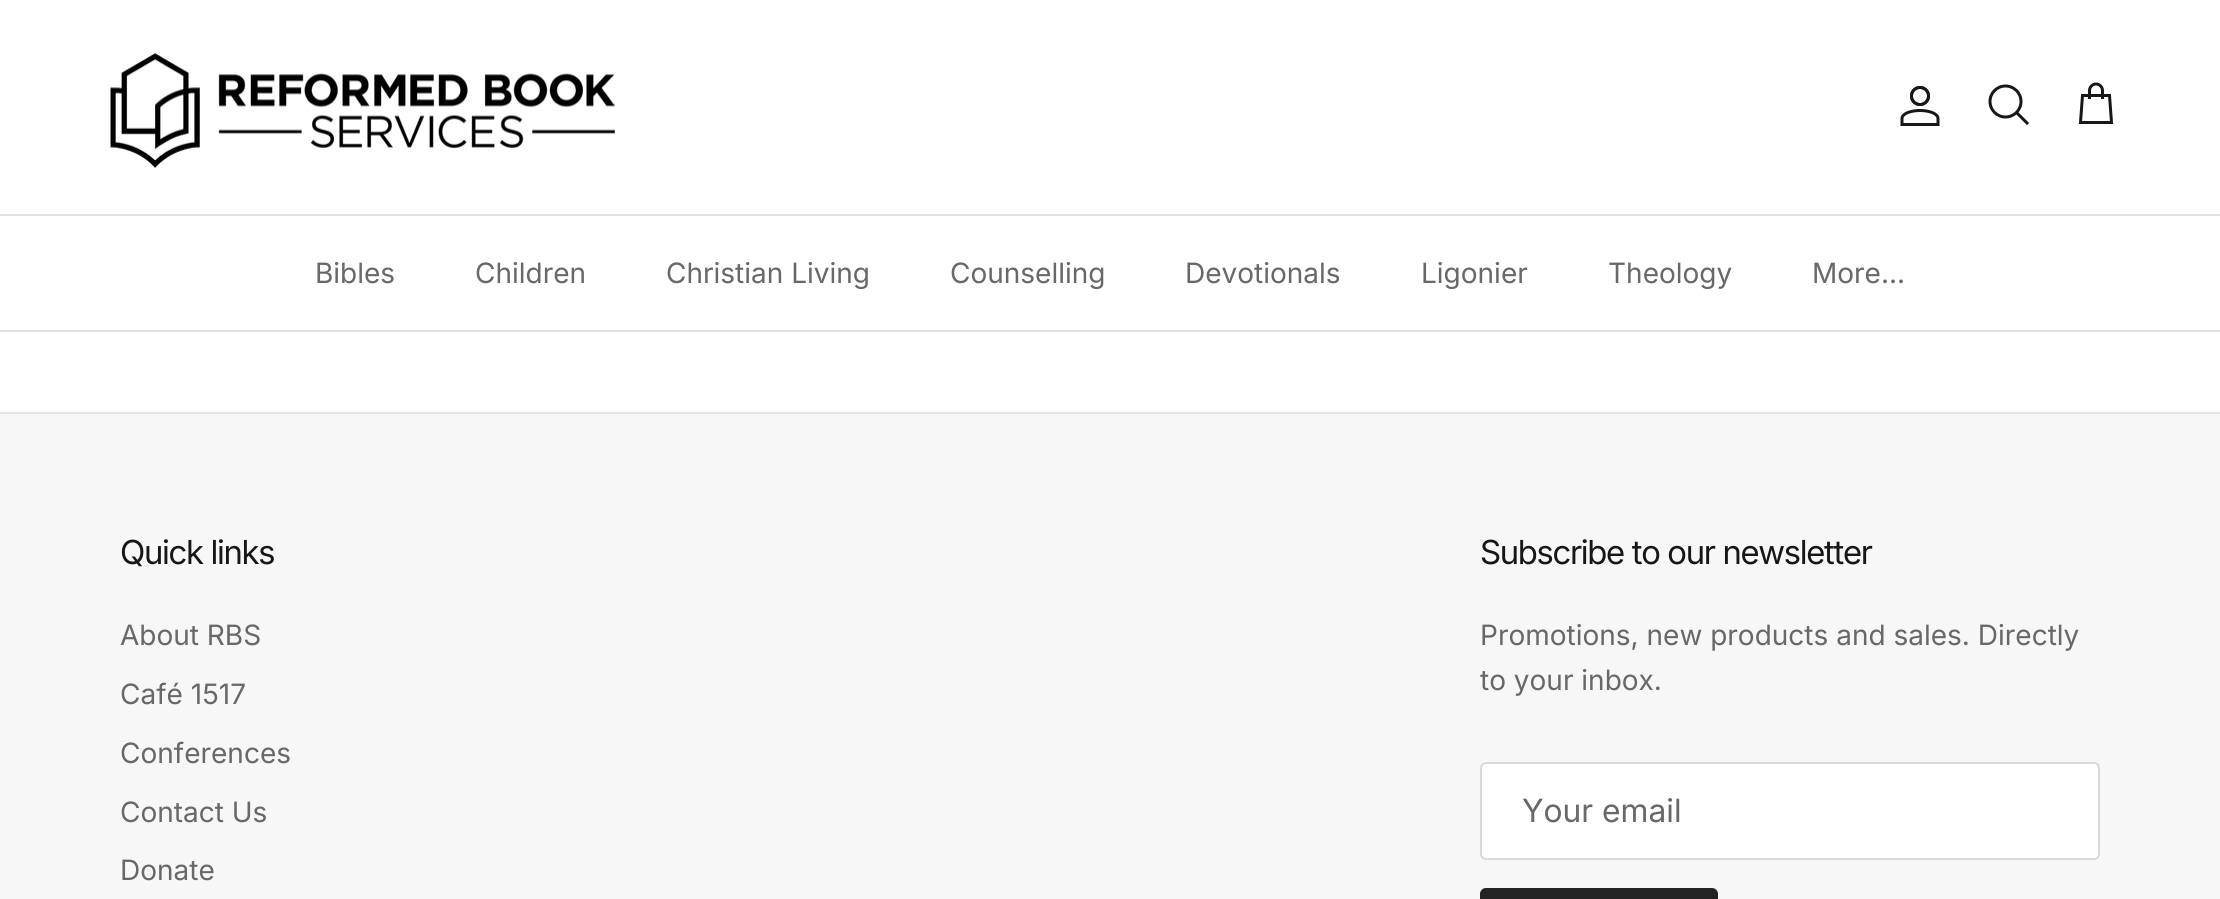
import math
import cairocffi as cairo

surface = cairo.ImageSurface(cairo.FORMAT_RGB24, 2220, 899)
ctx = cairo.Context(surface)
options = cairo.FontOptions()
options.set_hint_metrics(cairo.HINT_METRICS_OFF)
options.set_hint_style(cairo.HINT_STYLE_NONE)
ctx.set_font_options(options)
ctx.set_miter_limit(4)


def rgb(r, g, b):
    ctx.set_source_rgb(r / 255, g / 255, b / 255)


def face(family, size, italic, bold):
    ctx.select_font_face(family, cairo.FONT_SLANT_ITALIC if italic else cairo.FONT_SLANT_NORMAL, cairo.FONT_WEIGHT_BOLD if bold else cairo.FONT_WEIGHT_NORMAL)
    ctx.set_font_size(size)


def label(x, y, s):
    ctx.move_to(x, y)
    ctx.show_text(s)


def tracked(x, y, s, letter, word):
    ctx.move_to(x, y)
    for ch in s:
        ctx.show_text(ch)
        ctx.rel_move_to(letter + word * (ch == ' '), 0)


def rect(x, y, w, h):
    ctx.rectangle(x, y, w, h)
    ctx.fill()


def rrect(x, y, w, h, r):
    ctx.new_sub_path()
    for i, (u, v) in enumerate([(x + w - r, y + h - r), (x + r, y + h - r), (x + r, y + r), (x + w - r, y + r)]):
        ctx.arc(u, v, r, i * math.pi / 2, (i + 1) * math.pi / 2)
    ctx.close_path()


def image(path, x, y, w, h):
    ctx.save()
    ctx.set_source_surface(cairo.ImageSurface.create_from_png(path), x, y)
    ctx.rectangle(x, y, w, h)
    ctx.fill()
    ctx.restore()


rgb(255, 255, 255)
ctx.paint()
rgb(226, 226, 226)
rect(0, 214, 2220, 2)
image('image0.png', 110, 53, 506, 115)
image('image1.png', 1900, 86, 40, 40)
ctx.arc(2005.5, 101.5, 15.5, 0, 2 * math.pi)
rgb(23, 23, 23)
ctx.set_line_width(3)
ctx.stroke()
ctx.new_path()
ctx.move_to(2018, 114)
ctx.line_to(2027, 123)
ctx.set_line_cap(cairo.LINE_CAP_SQUARE)
ctx.stroke()
ctx.new_path()
ctx.move_to(2102.5, 99)
ctx.line_to(2102.5, 90.5)
ctx.curve_to(2102.5, 87, 2099.5, 84, 2096, 84)
ctx.curve_to(2092.5, 84, 2089.5, 87, 2089.5, 90.5)
ctx.line_to(2089.5, 99)
ctx.move_to(2082.5, 95.5)
ctx.line_to(2109.5, 95.5)
ctx.line_to(2111.5, 122.5)
ctx.line_to(2080.5, 122.5)
ctx.close_path()
ctx.set_line_cap(cairo.LINE_CAP_BUTT)
ctx.stroke()
rgb(226, 226, 226)
rect(0, 330, 2220, 2)
face('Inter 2', 28, 0, 0)
rgb(103, 104, 105)
label(315, 283, 'Bibles')
label(475, 283, 'Children')
label(666, 283, 'Christian Living')
label(950, 283, 'Counselling')
label(1185, 283, 'Devotionals')
label(1421, 283, 'Ligonier')
label(1608, 283, 'Theology')
label(1812, 283, 'More...')
rgb(247, 247, 248)
rect(0, 414, 2220, 485)
rgb(228, 228, 228)
rect(0, 412, 2220, 2)
face('Inter', 33.1, 0, 0)
rgb(23, 23, 23)
tracked(120, 564, 'Quick links', -1.3, 0)
face('Inter 2', 28, 0, 0)
rgb(103, 104, 105)
label(120, 645, 'About RBS')
label(120, 704, 'Café 1517')
label(120, 763, 'Conferences')
label(120, 822, 'Contact Us')
label(120, 880, 'Donate')
face('Inter', 33.1, 0, 0)
rgb(23, 23, 23)
tracked(1480, 564, 'Subscribe to our newsletter', -1.3, 0)
face('Inter 2', 28, 0, 0)
rgb(103, 104, 105)
label(1480, 645, 'Promotions, new products and sales. Directly')
label(1480, 690, 'to your inbox.')
rgb(255, 255, 255)
rrect(1481, 763, 618, 96, 5)
ctx.fill_preserve()
rgb(217, 217, 218)
ctx.set_line_width(2)
ctx.stroke()
face('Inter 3', 32, 0, 0)
rgb(103, 104, 105)
label(1522, 822, 'Your email')
rgb(35, 35, 35)
rrect(1481, 889, 236, 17, 5)
ctx.fill_preserve()
ctx.stroke()
surface.write_to_png('render.png')
